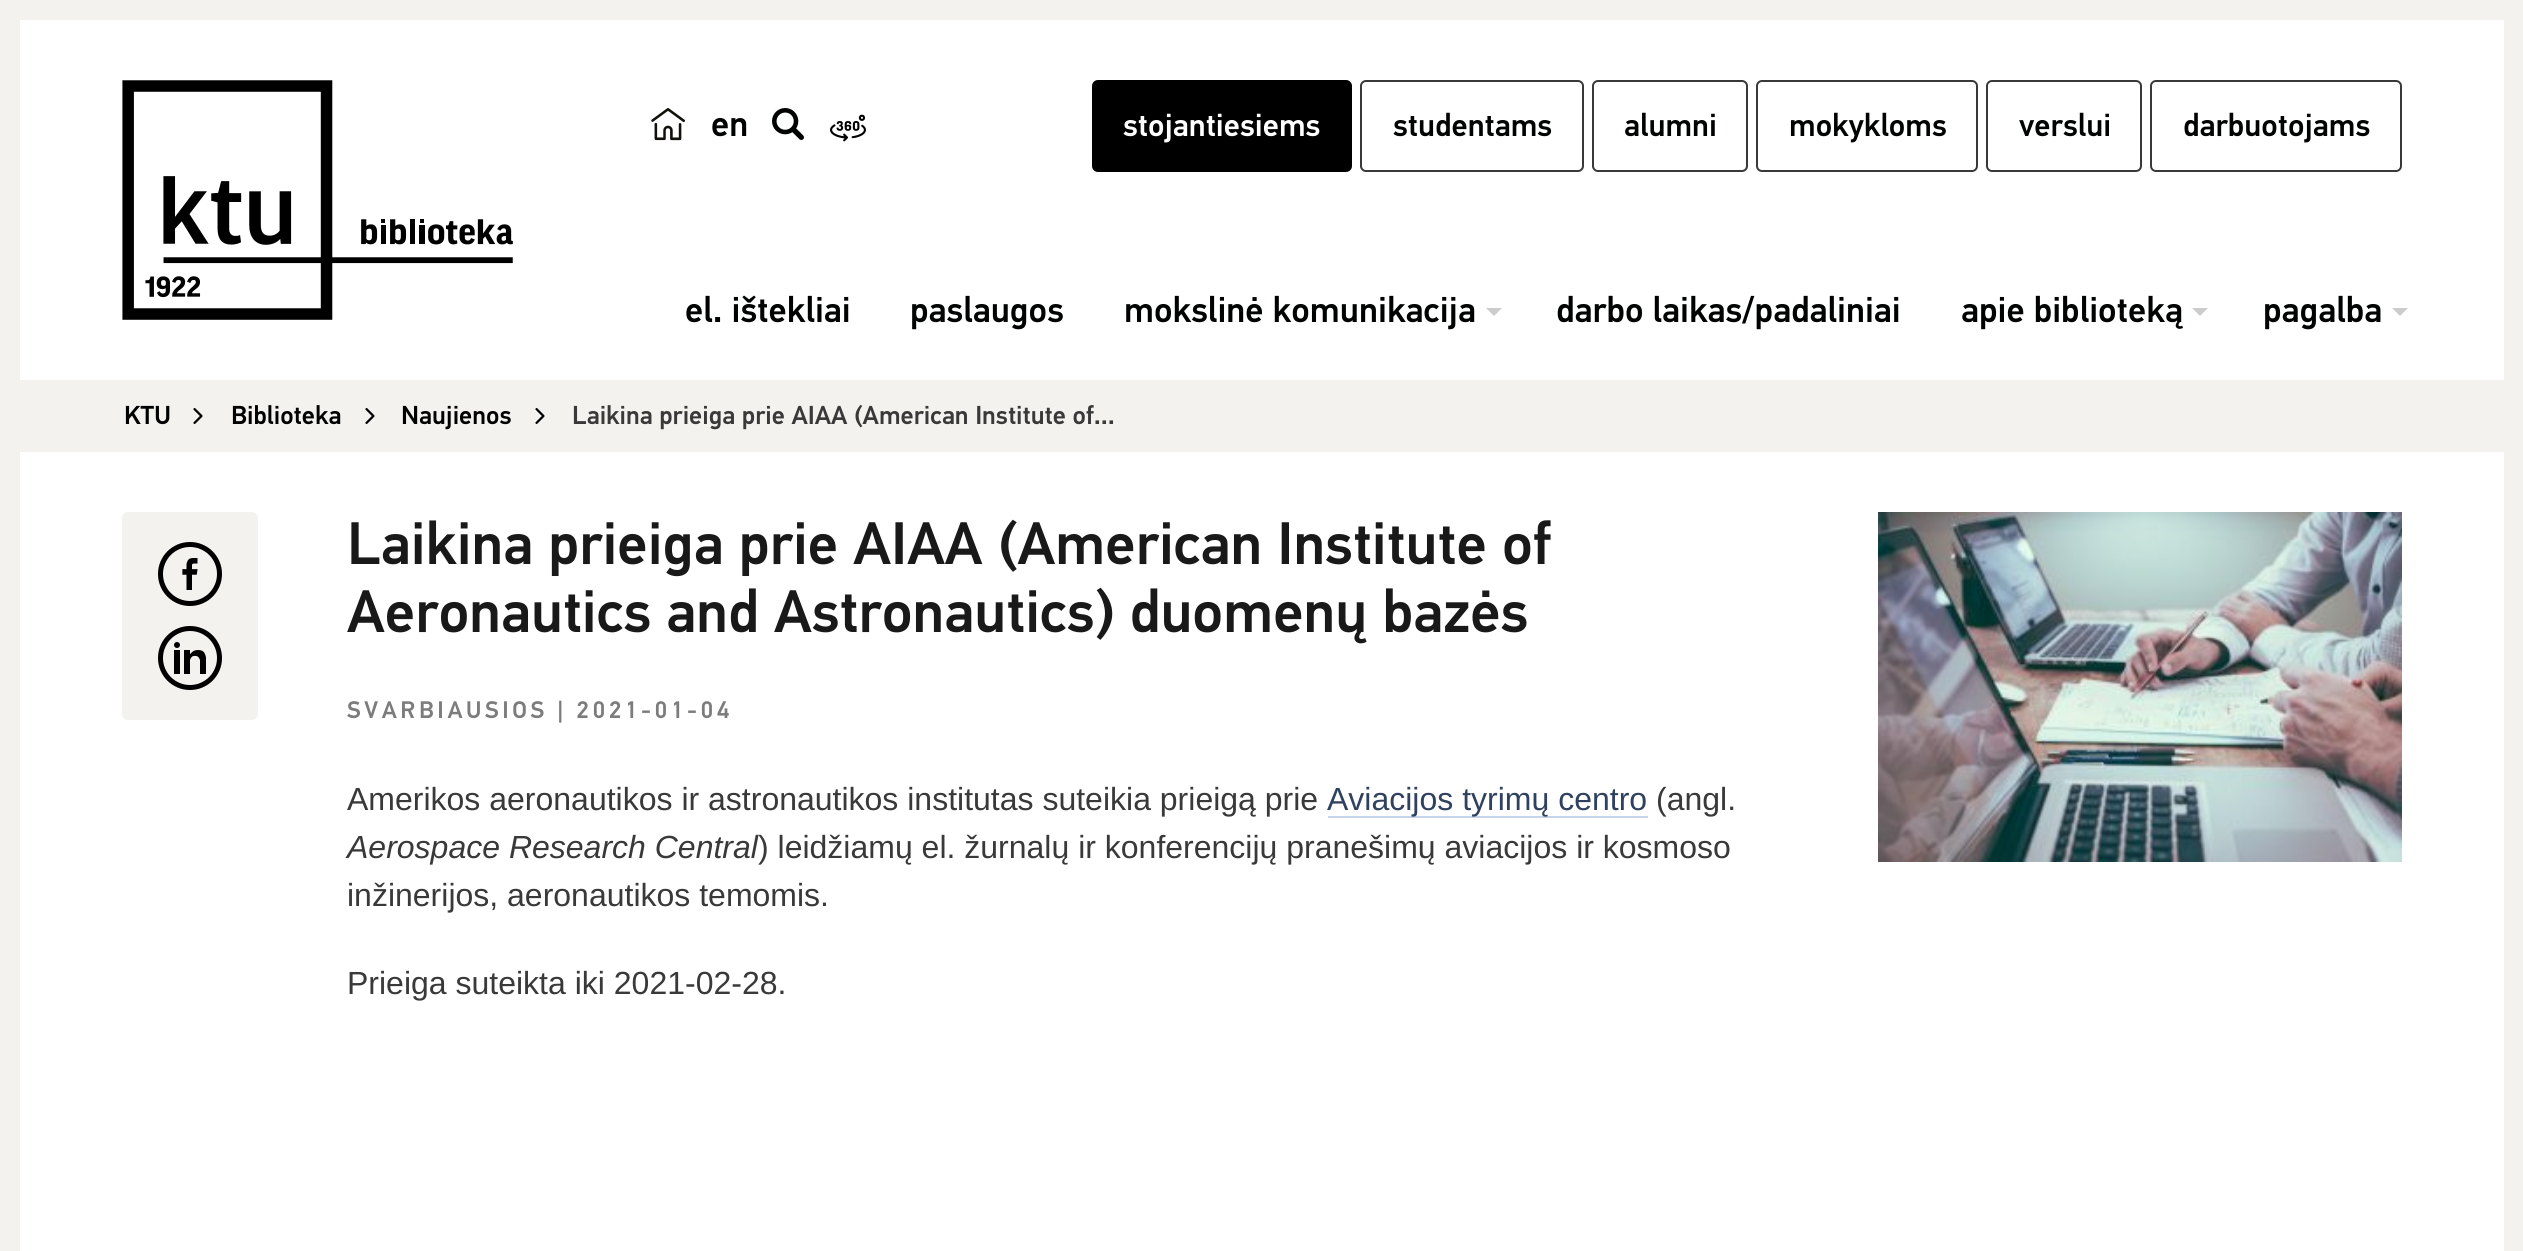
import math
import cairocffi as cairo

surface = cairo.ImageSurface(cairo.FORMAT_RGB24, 2523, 1251)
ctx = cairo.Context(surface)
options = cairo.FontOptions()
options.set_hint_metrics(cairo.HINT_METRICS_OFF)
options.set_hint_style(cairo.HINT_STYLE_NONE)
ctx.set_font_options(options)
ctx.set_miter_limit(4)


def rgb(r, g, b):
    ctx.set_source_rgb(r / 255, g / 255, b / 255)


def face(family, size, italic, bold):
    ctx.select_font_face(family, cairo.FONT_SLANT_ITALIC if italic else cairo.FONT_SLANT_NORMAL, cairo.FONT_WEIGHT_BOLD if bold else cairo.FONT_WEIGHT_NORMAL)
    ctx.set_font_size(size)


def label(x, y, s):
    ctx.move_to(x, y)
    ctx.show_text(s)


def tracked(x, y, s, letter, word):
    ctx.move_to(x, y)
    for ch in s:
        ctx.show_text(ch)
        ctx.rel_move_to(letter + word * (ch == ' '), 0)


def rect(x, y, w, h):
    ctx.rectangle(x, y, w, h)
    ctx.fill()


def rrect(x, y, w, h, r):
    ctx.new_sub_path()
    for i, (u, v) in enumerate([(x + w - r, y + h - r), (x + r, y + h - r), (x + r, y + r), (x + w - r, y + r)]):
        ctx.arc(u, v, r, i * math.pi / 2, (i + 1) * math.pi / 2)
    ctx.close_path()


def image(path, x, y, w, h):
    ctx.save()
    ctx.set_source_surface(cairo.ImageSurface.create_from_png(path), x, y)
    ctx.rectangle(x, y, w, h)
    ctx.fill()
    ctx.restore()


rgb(255, 255, 255)
ctx.paint()
ctx.rectangle(10, 10, 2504, 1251)
rgb(243, 242, 238)
ctx.set_line_width(20)
ctx.stroke()
image('image0.png', 122, 80, 391, 240)
image('image1.png', 651, 108, 34, 33)
face('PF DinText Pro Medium', 36, 0, 0)
rgb(0, 1, 1)
label(711, 136, 'en')
image('image2.png', 772, 108, 32, 32)
image('image3.png', 830, 114, 36, 28)
rgb(0, 0, 0)
rrect(1093, 81, 258, 90, 5)
ctx.fill_preserve()
ctx.set_line_width(2)
ctx.stroke()
face('PF DinText Pro Medium', 32, 0, 0)
rgb(255, 255, 255)
label(1123, 136, 'stojantiesiems')
rrect(1361, 81, 222, 90, 5)
rgb(57, 57, 57)
ctx.stroke()
rgb(0, 1, 1)
label(1393, 136, 'studentams')
rrect(1593, 81, 154, 90, 5)
rgb(57, 57, 57)
ctx.stroke()
rgb(0, 1, 1)
label(1624, 136, 'alumni')
rrect(1757, 81, 220, 90, 5)
rgb(57, 57, 57)
ctx.stroke()
rgb(0, 1, 1)
label(1789, 136, 'mokykloms')
rrect(1987, 81, 154, 90, 5)
rgb(57, 57, 57)
ctx.stroke()
rgb(0, 1, 1)
label(2019, 136, 'verslui')
rrect(2151, 81, 250, 90, 5)
rgb(57, 57, 57)
ctx.stroke()
rgb(0, 1, 1)
label(2183, 136, 'darbuotojams')
face('PF DinText Pro Medium', 36, 0, 0)
label(685, 322, 'el. ištekliai')
label(910, 322, 'paslaugos')
label(1124, 322, 'mokslinė komunikacija')
rgb(204, 204, 204)
ctx.new_path()
ctx.move_to(1486, 308)
ctx.line_to(1502, 308)
ctx.line_to(1494, 316)
ctx.close_path()
ctx.fill()
rgb(0, 1, 1)
label(1556, 322, 'darbo laikas/padaliniai')
label(1961, 322, 'apie biblioteką')
rgb(204, 204, 204)
ctx.new_path()
ctx.move_to(2192, 308)
ctx.line_to(2208, 308)
ctx.line_to(2200, 316)
ctx.close_path()
ctx.fill()
rgb(0, 1, 1)
label(2263, 322, 'pagalba')
rgb(204, 204, 204)
ctx.new_path()
ctx.move_to(2392, 308)
ctx.line_to(2408, 308)
ctx.line_to(2400, 316)
ctx.close_path()
ctx.fill()
rgb(243, 242, 238)
rect(20, 380, 2484, 72)
face('PF DinText Pro Medium', 26, 0, 0)
rgb(0, 1, 1)
label(124, 424, 'KTU')
image('image4.png', 193, 408, 10, 16)
label(231, 424, 'Biblioteka')
image('image4.png', 365, 408, 10, 16)
label(401, 424, 'Naujienos')
image('image4.png', 535, 408, 10, 16)
rgb(57, 57, 57)
label(572, 424, 'Laikina prieiga prie AIAA (American Institute of...')
rgb(243, 242, 238)
rrect(122, 512, 136, 208, 6)
ctx.fill()
image('image5.png', 158, 542, 64, 64)
image('image6.png', 158, 626, 64, 64)
face('PF DinText Pro Medium', 60, 0, 0)
rgb(26, 25, 25)
label(347, 564, 'Laikina prieiga prie AIAA (American Institute of')
label(347, 632, 'Aeronautics and Astronautics) duomenų bazės')
face('PF DinText Pro Medium', 24, 0, 0)
rgb(124, 124, 124)
tracked(347, 718, 'SVARBIAUSIOS | 2021-01-04', 3.6, 0)
face('Liberation Sans', 32, 0, 0)
rgb(57, 57, 57)
label(347, 810, 'Amerikos aeronautikos ir astronautikos institutas suteikia prieigą prie')
rgb(197, 212, 237)
rect(1328, 816, 320, 2)
rgb(47, 65, 95)
label(1327, 810, 'Aviacijos tyrimų centro')
rgb(57, 57, 57)
label(1656, 810, '(angl.')
face('Liberation Sans', 32, 1, 0)
label(347, 858, 'Aerospace Research Central')
face('Liberation Sans', 32, 0, 0)
label(758, 858, ') leidžiamų el. žurnalų ir konferencijų pranešimų aviacijos ir kosmoso')
label(347, 906, 'inžinerijos, aeronautikos temomis.')
label(347, 994, 'Prieiga suteikta iki 2021-02-28.')
image('image7.png', 1878, 512, 524, 350)
surface.write_to_png('render.png')
